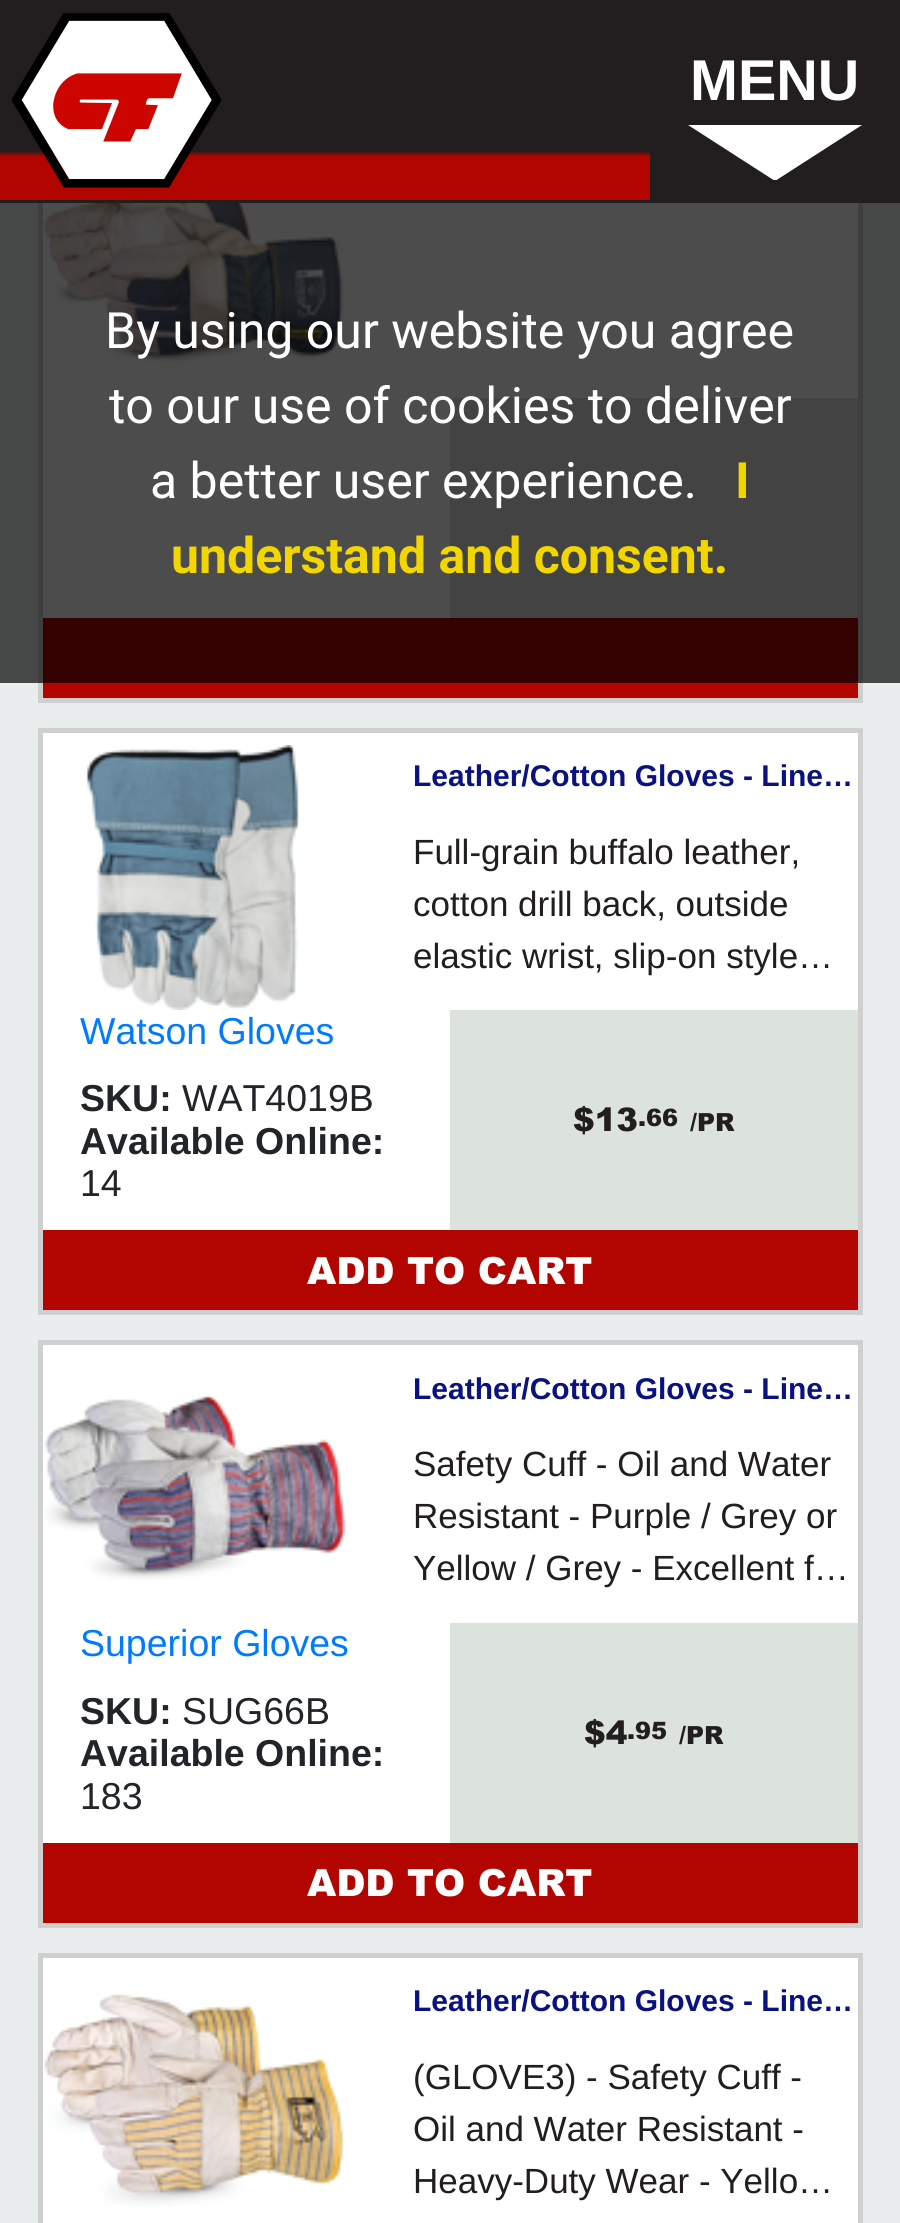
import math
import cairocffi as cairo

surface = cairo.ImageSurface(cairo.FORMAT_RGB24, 900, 2223)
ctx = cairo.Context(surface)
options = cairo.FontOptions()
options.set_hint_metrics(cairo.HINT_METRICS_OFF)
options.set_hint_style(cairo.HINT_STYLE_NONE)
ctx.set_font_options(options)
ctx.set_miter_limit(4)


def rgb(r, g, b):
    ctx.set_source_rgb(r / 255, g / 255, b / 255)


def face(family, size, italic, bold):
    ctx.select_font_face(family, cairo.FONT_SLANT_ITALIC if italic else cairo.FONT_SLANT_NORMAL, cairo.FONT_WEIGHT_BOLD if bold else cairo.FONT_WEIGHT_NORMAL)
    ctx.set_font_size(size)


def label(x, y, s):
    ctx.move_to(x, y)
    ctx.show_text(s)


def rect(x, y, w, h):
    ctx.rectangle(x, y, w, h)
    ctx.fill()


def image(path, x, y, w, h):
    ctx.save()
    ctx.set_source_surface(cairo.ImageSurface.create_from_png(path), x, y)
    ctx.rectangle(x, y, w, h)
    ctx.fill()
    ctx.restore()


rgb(234, 237, 237)
ctx.paint()
rgb(255, 255, 255)
rect(43, 203, 815, 2020)
ctx.rectangle(40.5, 117.5, 820, 583)
rgb(207, 207, 207)
ctx.set_line_width(5)
ctx.stroke()
image('image0.png', 0, 0, 650, 200)
image('image1.png', 11, 13, 211, 175)
rgb(34, 30, 31)
rect(650, 0, 250, 200)
face('Liberation Sans', 57.5, 0, 1)
rgb(255, 255, 255)
label(690, 100, 'MENU')
ctx.save()
ctx.rectangle(688, 125, 175, 55)
ctx.clip()
ctx.new_path()
ctx.move_to(775, 181)
ctx.line_to(688, 125)
ctx.line_to(862, 125)
ctx.close_path()
ctx.fill()
ctx.restore()
rgb(34, 30, 31)
rect(0, 200, 900, 3)
image('image2.png', 43, 203, 301, 161)
rgb(220, 226, 220)
rect(450, 398, 408, 220)
rgb(178, 5, 0)
rect(43, 618, 815, 80)
ctx.set_source_rgba(0, 0, 0, 0.7)
rect(0, 203, 900, 480)
face('Roboto', 50, 0, 0)
rgb(255, 255, 255)
label(105, 348, 'By using our website you agree')
label(109, 423, 'to our use of cookies to deliver')
label(150, 498, 'a better user experience.')
face('Roboto', 50, 0, 1)
rgb(241, 214, 0)
label(735, 498, 'I')
label(171, 573, 'understand and consent.')
rgb(234, 237, 237)
rect(43, 703, 815, 25)
ctx.rectangle(40.5, 730.5, 820, 582)
rgb(207, 207, 207)
ctx.stroke()
image('image3.png', 86, 745, 213, 265)
face('Liberation Sans', 30, 0, 1)
rgb(10, 18, 129)
label(413, 786, 'Leather/Cotton Gloves - Line…')
face('Liberation Sans', 35, 0, 0)
rgb(34, 30, 31)
label(413, 864, 'Full-grain buffalo leather,')
label(413, 916, 'cotton drill back, outside')
label(413, 968, 'elastic wrist, slip-on style…')
face('Liberation Sans', 37.5, 0, 0)
rgb(0, 123, 255)
label(80, 1044, 'Watson Gloves')
face('Liberation Sans', 37.5, 0, 1)
rgb(33, 37, 41)
label(80, 1111, 'SKU:')
face('Liberation Sans', 37.5, 0, 0)
label(182, 1111, 'WAT4019B')
face('Liberation Sans', 37.5, 0, 1)
label(80, 1154, 'Available Online:')
face('Liberation Sans', 37.5, 0, 0)
label(80, 1196, '14')
rgb(220, 226, 220)
rect(450, 1010, 408, 220)
face('Arial Black', 32.5, 0, 0)
rgb(34, 30, 31)
label(573, 1131, '$13')
face('Arial Black', 24, 0, 0)
label(638, 1126, '.66')
face('Arial Black', 25, 0, 0)
label(690, 1131, '/PR')
rgb(178, 5, 0)
rect(43, 1230, 815, 80)
face('Arial Black', 37.5, 0, 0)
rgb(255, 255, 255)
label(307, 1284, 'ADD TO CART')
rgb(234, 237, 237)
rect(43, 1315, 815, 25)
ctx.rectangle(40.5, 1342.5, 820, 583)
rgb(207, 207, 207)
ctx.stroke()
image('image4.png', 44, 1394, 301, 187)
face('Liberation Sans', 30, 0, 1)
rgb(10, 18, 129)
label(413, 1399, 'Leather/Cotton Gloves - Line…')
face('Liberation Sans', 35, 0, 0)
rgb(34, 30, 31)
label(413, 1476, 'Safety Cuff - Oil and Water')
label(413, 1528, 'Resistant - Purple / Grey or')
label(413, 1580, 'Yellow / Grey - Excellent f…')
face('Liberation Sans', 37.5, 0, 0)
rgb(0, 123, 255)
label(80, 1656, 'Superior Gloves')
face('Liberation Sans', 37.5, 0, 1)
rgb(33, 37, 41)
label(80, 1724, 'SKU:')
face('Liberation Sans', 37.5, 0, 0)
label(182, 1724, 'SUG66B')
face('Liberation Sans', 37.5, 0, 1)
label(80, 1766, 'Available Online:')
face('Liberation Sans', 37.5, 0, 0)
label(80, 1809, '183')
rgb(220, 226, 220)
rect(450, 1623, 408, 220)
face('Arial Black', 32.5, 0, 0)
rgb(34, 30, 31)
label(584, 1744, '$4')
face('Arial Black', 24, 0, 0)
label(627, 1739, '.95')
face('Arial Black', 25, 0, 0)
label(679, 1744, '/PR')
rgb(178, 5, 0)
rect(43, 1843, 815, 80)
face('Arial Black', 37.5, 0, 0)
rgb(255, 255, 255)
label(307, 1896, 'ADD TO CART')
rgb(234, 237, 237)
rect(43, 1928, 815, 25)
ctx.rectangle(40.5, 1955.5, 820, 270)
rgb(207, 207, 207)
ctx.stroke()
image('image5.png', 44, 1994, 300, 213)
face('Liberation Sans', 30, 0, 1)
rgb(10, 18, 129)
label(413, 2011, 'Leather/Cotton Gloves - Line…')
face('Liberation Sans', 35, 0, 0)
rgb(34, 30, 31)
label(413, 2089, '(GLOVE3) - Safety Cuff -')
label(413, 2141, 'Oil and Water Resistant -')
label(413, 2193, 'Heavy-Duty Wear - Yello…')
surface.write_to_png('render.png')
